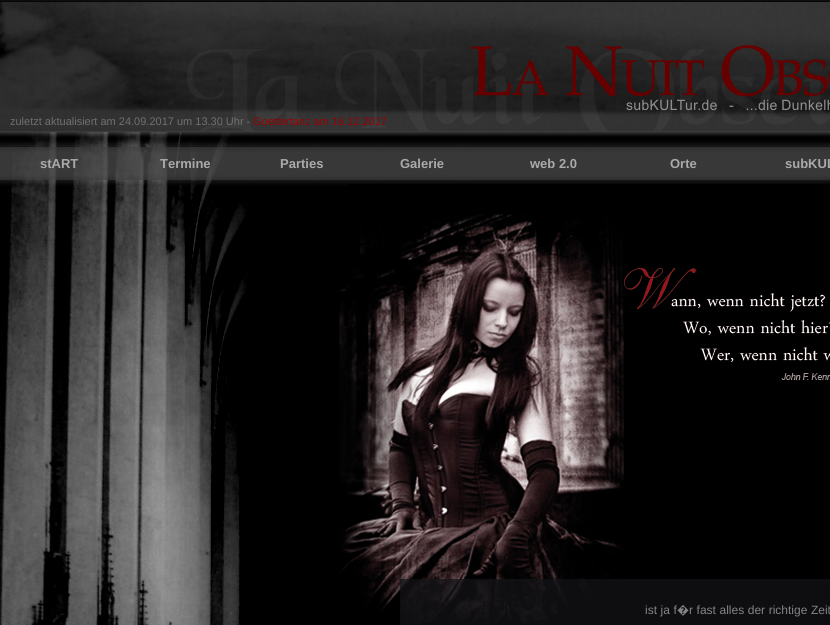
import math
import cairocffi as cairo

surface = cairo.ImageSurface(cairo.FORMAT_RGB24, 830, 625)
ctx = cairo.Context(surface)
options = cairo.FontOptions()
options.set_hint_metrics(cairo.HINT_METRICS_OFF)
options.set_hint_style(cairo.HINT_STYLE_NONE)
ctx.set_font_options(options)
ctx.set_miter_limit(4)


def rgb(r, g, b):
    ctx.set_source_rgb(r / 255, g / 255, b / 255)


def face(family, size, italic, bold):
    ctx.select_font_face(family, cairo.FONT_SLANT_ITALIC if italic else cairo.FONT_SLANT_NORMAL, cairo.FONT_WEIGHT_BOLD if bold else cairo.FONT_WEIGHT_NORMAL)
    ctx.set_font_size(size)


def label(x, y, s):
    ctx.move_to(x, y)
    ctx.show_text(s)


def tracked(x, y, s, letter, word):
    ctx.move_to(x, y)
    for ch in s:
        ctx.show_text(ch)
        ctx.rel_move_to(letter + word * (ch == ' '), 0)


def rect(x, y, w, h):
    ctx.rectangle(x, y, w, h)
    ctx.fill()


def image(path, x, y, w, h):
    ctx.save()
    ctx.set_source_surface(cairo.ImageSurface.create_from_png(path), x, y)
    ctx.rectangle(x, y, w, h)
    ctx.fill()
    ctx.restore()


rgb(0, 0, 0)
ctx.paint()
image('image0.png', 0, 0, 830, 146)
face('Liberation Sans', 11, 0, 0)
rgb(112, 112, 112)
label(10, 125, 'zuletzt aktualisiert am 24.09.2017 um 13.30 Uhr -')
rgb(153, 0, 0)
label(253, 125, 'Goettertanz am 16.12.2017')
image('image1.png', 0, 146, 830, 38)
face('Liberation Sans', 13, 0, 1)
rgb(170, 170, 170)
label(40, 168, 'stART')
label(160, 168, 'Termine')
label(280, 168, 'Parties')
label(400, 168, 'Galerie')
label(530, 168, 'web 2.0')
label(670, 168, 'Orte')
label(785, 168, 'subKUL')
image('image2.png', 0, 184, 349, 441)
rgb(0, 0, 0)
rect(322, 535, 4, 8)
image('image3.png', 339, 214, 491, 411)
ctx.set_source_rgba(0.078, 0.078, 0.09, 0.75)
rect(400, 579, 430, 46)
face('Liberation Sans', 12, 0, 0)
rgb(132, 132, 132)
tracked(645, 614, 'ist ja f', 0, 0.25)
face('Noto Sans', 12, 0, 0)
label(677, 614, '�')
face('Liberation Sans', 12, 0, 0)
tracked(689, 614, 'r fast alles der richtige Zeit', 0, 0.25)
surface.write_to_png('render.png')
